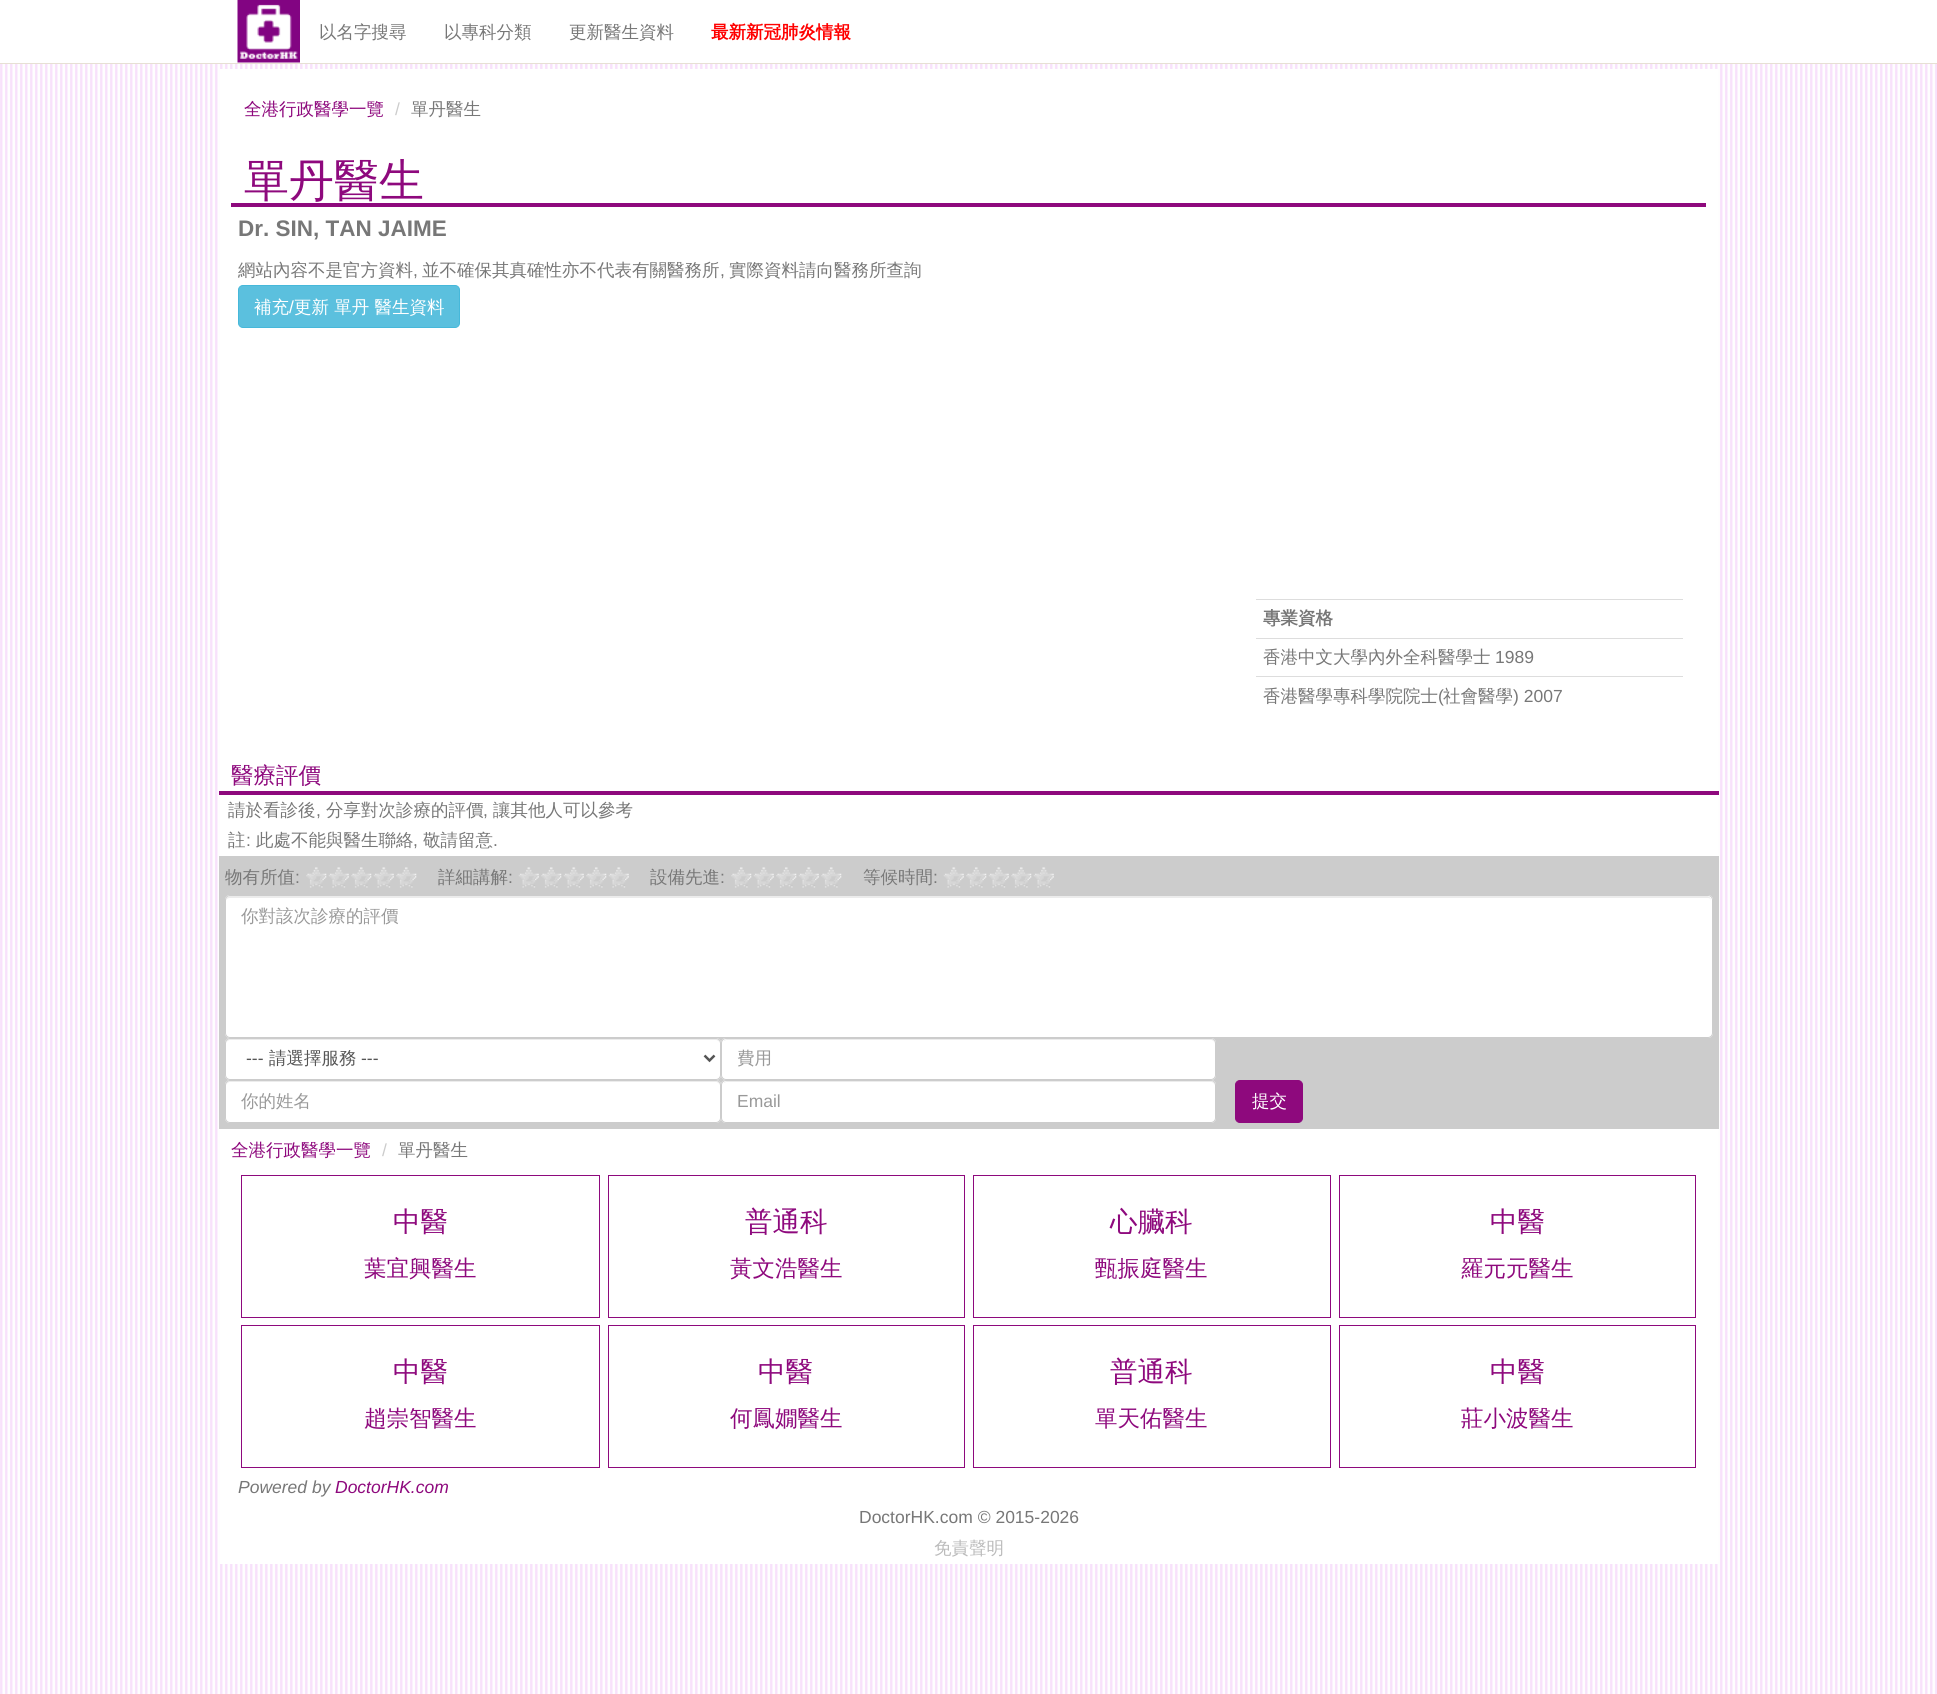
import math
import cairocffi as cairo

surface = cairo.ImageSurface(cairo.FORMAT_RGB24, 1937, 1694)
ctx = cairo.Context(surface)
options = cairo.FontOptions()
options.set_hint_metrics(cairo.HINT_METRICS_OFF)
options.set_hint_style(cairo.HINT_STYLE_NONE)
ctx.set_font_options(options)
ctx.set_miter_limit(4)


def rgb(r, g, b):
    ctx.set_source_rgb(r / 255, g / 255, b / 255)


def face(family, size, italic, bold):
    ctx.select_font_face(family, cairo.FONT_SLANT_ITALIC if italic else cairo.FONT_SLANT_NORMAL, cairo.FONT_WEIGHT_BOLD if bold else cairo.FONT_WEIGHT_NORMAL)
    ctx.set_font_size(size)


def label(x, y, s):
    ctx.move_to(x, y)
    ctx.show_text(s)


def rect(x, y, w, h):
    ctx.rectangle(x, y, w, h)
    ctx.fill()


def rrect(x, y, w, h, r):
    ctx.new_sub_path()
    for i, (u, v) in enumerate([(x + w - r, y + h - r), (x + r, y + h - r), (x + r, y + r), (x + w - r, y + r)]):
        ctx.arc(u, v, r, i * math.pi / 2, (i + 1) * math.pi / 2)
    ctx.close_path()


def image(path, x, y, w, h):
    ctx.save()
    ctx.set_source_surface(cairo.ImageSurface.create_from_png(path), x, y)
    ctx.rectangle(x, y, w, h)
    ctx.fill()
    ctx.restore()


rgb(255, 255, 255)
ctx.paint()
image('image0.png', 0, 64, 1937, 1630)
rgb(231, 224, 212)
rect(0, 63, 1937, 1)
image('image1.png', 237, 0, 63, 63)
face('WenQuanYi Zen Hei Medium', 17.5, 0, 0)
rgb(119, 119, 119)
label(319, 38, '以名字搜尋')
label(444, 38, '以專科分類')
label(569, 38, '更新醫生資料')
face('WenQuanYi Zen Hei', 17.5, 0, 1)
rgb(255, 0, 0)
label(711, 38, '最新新冠肺炎情報')
rgb(255, 255, 255)
rect(220, 69, 1498, 1495)
face('WenQuanYi Zen Hei Medium', 17.5, 0, 0)
rgb(142, 9, 125)
label(244, 115, '全港行政醫學一覽')
face('Liberation Sans', 17.5, 0, 0)
rgb(204, 204, 204)
label(395, 115, '/')
face('WenQuanYi Zen Hei Medium', 17.5, 0, 0)
rgb(119, 119, 119)
label(411, 115, '單丹醫生')
rgb(142, 9, 125)
rect(231, 203, 1475, 4)
face('WenQuanYi Zen Hei Medium', 45, 0, 0)
label(244, 196, '單丹醫生')
face('Liberation Sans', 22.5, 0, 1)
rgb(119, 119, 119)
label(238, 236, 'Dr. SIN, TAN JAIME')
face('WenQuanYi Zen Hei Medium', 17.5, 0, 0)
label(238, 276, '網站內容不是官方資料')
face('Liberation Sans', 17.5, 0, 0)
label(413, 276, ',')
face('WenQuanYi Zen Hei Medium', 17.5, 0, 0)
label(422, 276, '並不確保其真確性亦不代表有關醫務所')
face('Liberation Sans', 17.5, 0, 0)
label(720, 276, ',')
face('WenQuanYi Zen Hei Medium', 17.5, 0, 0)
label(729, 276, '實際資料請向醫務所查詢')
rgb(91, 192, 222)
rrect(238.5, 285.5, 221, 42, 4.5)
ctx.fill_preserve()
rgb(70, 184, 218)
ctx.set_line_width(1)
ctx.stroke()
rgb(255, 255, 255)
label(254, 313, '補充')
face('Liberation Sans', 17.5, 0, 0)
label(289, 313, '/')
face('WenQuanYi Zen Hei Medium', 17.5, 0, 0)
label(294, 313, '更新 單丹 醫生資料')
rgb(221, 221, 221)
rect(1256, 599, 427, 1)
face('WenQuanYi Zen Hei', 17.5, 0, 1)
rgb(119, 119, 119)
label(1263, 624, '專業資格')
rgb(221, 221, 221)
rect(1256, 638, 427, 1)
face('WenQuanYi Zen Hei Medium', 17.5, 0, 0)
rgb(119, 119, 119)
label(1263, 663, '香港中文大學內外全科醫學士')
face('Liberation Sans', 17.5, 0, 0)
label(1495, 663, '1989')
rgb(221, 221, 221)
rect(1256, 676, 427, 1)
face('WenQuanYi Zen Hei Medium', 17.5, 0, 0)
rgb(119, 119, 119)
label(1263, 702, '香港醫學專科學院院士')
face('Liberation Sans', 17.5, 0, 0)
label(1438, 702, '(')
face('WenQuanYi Zen Hei Medium', 17.5, 0, 0)
label(1443, 702, '社會醫學')
face('Liberation Sans', 17.5, 0, 0)
label(1513, 702, ') 2007')
rgb(142, 9, 125)
rect(219, 791, 1500, 4)
face('WenQuanYi Zen Hei Medium', 22.5, 0, 0)
label(231, 783, '醫療評價')
face('WenQuanYi Zen Hei Medium', 17.5, 0, 0)
rgb(119, 119, 119)
label(228, 816, '請於看診後')
face('Liberation Sans', 17.5, 0, 0)
label(316, 816, ',')
face('WenQuanYi Zen Hei Medium', 17.5, 0, 0)
label(326, 816, '分享對次診療的評價')
face('Liberation Sans', 17.5, 0, 0)
label(483, 816, ',')
face('WenQuanYi Zen Hei Medium', 17.5, 0, 0)
label(493, 816, '讓其他人可以參考')
label(228, 846, '註')
face('Liberation Sans', 17.5, 0, 0)
label(246, 846, ':')
face('WenQuanYi Zen Hei Medium', 17.5, 0, 0)
label(256, 846, '此處不能與醫生聯絡')
label(423, 846, '敬請留意')
face('Liberation Sans', 17.5, 0, 0)
label(413, 846, ',')
label(493, 846, '.')
rgb(204, 204, 204)
rect(219, 856, 1500, 273)
face('WenQuanYi Zen Hei Medium', 17.5, 0, 0)
rgb(119, 119, 119)
label(225, 883, '物有所值')
face('Liberation Sans', 17.5, 0, 0)
label(295, 883, ':')
image('image2.png', 306, 867, 21, 21)
image('image3.png', 328, 867, 21, 21)
image('image2.png', 351, 867, 21, 21)
image('image4.png', 373, 867, 21, 21)
image('image2.png', 396, 867, 21, 21)
face('WenQuanYi Zen Hei Medium', 17.5, 0, 0)
label(438, 883, '詳細講解')
face('Liberation Sans', 17.5, 0, 0)
label(508, 883, ':')
image('image4.png', 518, 867, 21, 21)
image('image2.png', 541, 867, 21, 21)
image('image4.png', 563, 867, 21, 21)
image('image2.png', 586, 867, 21, 21)
image('image3.png', 608, 867, 21, 21)
face('WenQuanYi Zen Hei Medium', 17.5, 0, 0)
label(650, 883, '設備先進')
face('Liberation Sans', 17.5, 0, 0)
label(720, 883, ':')
image('image2.png', 731, 867, 21, 21)
image('image5.png', 753, 867, 21, 21)
image('image2.png', 776, 867, 21, 21)
image('image3.png', 798, 867, 21, 21)
image('image2.png', 821, 867, 21, 21)
face('WenQuanYi Zen Hei Medium', 17.5, 0, 0)
label(863, 883, '等候時間')
face('Liberation Sans', 17.5, 0, 0)
label(933, 883, ':')
image('image4.png', 943, 867, 21, 21)
image('image2.png', 966, 867, 21, 21)
image('image4.png', 988, 867, 21, 21)
image('image6.png', 1011, 867, 21, 21)
image('image3.png', 1033, 867, 21, 21)
rgb(255, 255, 255)
rrect(225, 895, 1488, 143, 5)
ctx.fill()
rgb(236, 236, 236)
ctx.new_path()
ctx.move_to(230, 898)
ctx.line_to(1708, 898)
ctx.curve_to(1710, 898, 1711, 899, 1711, 901)
ctx.line_to(1711, 900)
ctx.curve_to(1711, 898, 1709, 896, 1707, 896)
ctx.line_to(230, 896)
ctx.curve_to(228, 896, 226, 898, 226, 900)
ctx.line_to(226, 901)
ctx.curve_to(226, 899, 228, 898, 230, 898)
ctx.close_path()
ctx.fill()
rrect(225.5, 895.5, 1487, 142, 4.5)
rgb(204, 204, 204)
ctx.stroke()
face('WenQuanYi Zen Hei Medium', 17.5, 0, 0)
rgb(153, 153, 153)
label(241, 922, '你對該次診療的評價')
rgb(255, 255, 255)
rrect(225, 1038, 496, 42, 5)
ctx.fill()
rgb(236, 236, 236)
ctx.new_path()
ctx.move_to(230, 1040)
ctx.line_to(716, 1040)
ctx.curve_to(718, 1040, 720, 1042, 720, 1044)
ctx.curve_to(720, 1041, 719, 1039, 716, 1039)
ctx.line_to(230, 1039)
ctx.curve_to(227, 1039, 226, 1041, 226, 1044)
ctx.curve_to(226, 1042, 228, 1040, 230, 1040)
ctx.close_path()
ctx.fill()
rrect(225.5, 1038.5, 495, 41, 4.5)
rgb(204, 204, 204)
ctx.stroke()
ctx.new_path()
ctx.move_to(704.5, 1055.5)
ctx.line_to(709.5, 1060.5)
ctx.line_to(714.5, 1055.5)
rgb(85, 85, 85)
ctx.set_line_width(2.5)
ctx.stroke()
face('Liberation Sans', 17.5, 0, 0)
label(246, 1064, '---')
face('WenQuanYi Zen Hei Medium', 17.5, 0, 0)
label(269, 1064, '請選擇服務')
face('Liberation Sans', 17.5, 0, 0)
label(361, 1064, '---')
rgb(255, 255, 255)
rrect(721, 1038, 495, 42, 5)
ctx.fill()
rgb(236, 236, 236)
ctx.new_path()
ctx.move_to(726, 1040)
ctx.line_to(1211, 1040)
ctx.curve_to(1213, 1040, 1215, 1042, 1215, 1044)
ctx.line_to(1215, 1043)
ctx.curve_to(1215, 1041, 1213, 1039, 1211, 1039)
ctx.line_to(727, 1039)
ctx.curve_to(726, 1039, 724, 1040, 724, 1041)
ctx.close_path()
ctx.fill()
rrect(721.5, 1038.5, 494, 41, 4.5)
rgb(204, 204, 204)
ctx.set_line_width(1)
ctx.stroke()
face('WenQuanYi Zen Hei Medium', 17.5, 0, 0)
rgb(153, 153, 153)
label(737, 1064, '費用')
rgb(255, 255, 255)
rrect(225, 1080, 496, 43, 5)
ctx.fill()
rgb(236, 236, 236)
ctx.new_path()
ctx.move_to(230, 1082)
ctx.line_to(716, 1082)
ctx.curve_to(718, 1082, 720, 1084, 720, 1086)
ctx.curve_to(720, 1083, 719, 1081, 716, 1081)
ctx.line_to(230, 1081)
ctx.curve_to(227, 1081, 226, 1083, 226, 1086)
ctx.curve_to(226, 1084, 228, 1082, 230, 1082)
ctx.close_path()
ctx.fill()
rrect(225.5, 1080.5, 495, 42, 4.5)
rgb(204, 204, 204)
ctx.stroke()
rgb(153, 153, 153)
label(241, 1107, '你的姓名')
rgb(255, 255, 255)
rrect(721, 1080, 495, 43, 5)
ctx.fill()
rgb(236, 236, 236)
ctx.new_path()
ctx.move_to(726, 1082)
ctx.line_to(1211, 1082)
ctx.curve_to(1213, 1082, 1215, 1084, 1215, 1086)
ctx.line_to(1215, 1085)
ctx.curve_to(1215, 1083, 1213, 1081, 1211, 1081)
ctx.line_to(727, 1081)
ctx.curve_to(726, 1081, 724, 1082, 724, 1083)
ctx.close_path()
ctx.fill()
rrect(721.5, 1080.5, 494, 42, 4.5)
rgb(204, 204, 204)
ctx.stroke()
face('Liberation Sans', 17.5, 0, 0)
rgb(153, 153, 153)
label(737, 1107, 'Email')
rgb(142, 9, 125)
rrect(1235.5, 1080.5, 67, 42, 4.5)
ctx.fill_preserve()
ctx.stroke()
face('WenQuanYi Zen Hei Medium', 17.5, 0, 0)
rgb(255, 255, 255)
label(1252, 1107, '提交')
rgb(142, 9, 125)
label(231, 1156, '全港行政醫學一覽')
face('Liberation Sans', 17.5, 0, 0)
rgb(204, 204, 204)
label(382, 1156, '/')
face('WenQuanYi Zen Hei Medium', 17.5, 0, 0)
rgb(119, 119, 119)
label(398, 1156, '單丹醫生')
ctx.rectangle(241.5, 1175.5, 358, 142)
rgb(142, 9, 125)
ctx.stroke()
face('WenQuanYi Zen Hei Medium', 27.5, 0, 0)
label(393, 1231, '中醫')
face('WenQuanYi Zen Hei Medium', 22.5, 0, 0)
label(364, 1276, '葉宜興醫生')
ctx.rectangle(608.5, 1175.5, 356, 142)
ctx.stroke()
face('WenQuanYi Zen Hei Medium', 27.5, 0, 0)
label(745, 1231, '普通科')
face('WenQuanYi Zen Hei Medium', 22.5, 0, 0)
label(730, 1276, '黃文浩醫生')
ctx.rectangle(973.5, 1175.5, 357, 142)
ctx.stroke()
face('WenQuanYi Zen Hei Medium', 27.5, 0, 0)
label(1110, 1231, '心臟科')
face('WenQuanYi Zen Hei Medium', 22.5, 0, 0)
label(1095, 1276, '甄振庭醫生')
ctx.rectangle(1339.5, 1175.5, 356, 142)
ctx.stroke()
face('WenQuanYi Zen Hei Medium', 27.5, 0, 0)
label(1490, 1231, '中醫')
face('WenQuanYi Zen Hei Medium', 22.5, 0, 0)
label(1461, 1276, '羅元元醫生')
ctx.rectangle(241.5, 1325.5, 358, 142)
ctx.stroke()
face('WenQuanYi Zen Hei Medium', 27.5, 0, 0)
label(393, 1381, '中醫')
face('WenQuanYi Zen Hei Medium', 22.5, 0, 0)
label(364, 1426, '趙崇智醫生')
ctx.rectangle(608.5, 1325.5, 356, 142)
ctx.stroke()
face('WenQuanYi Zen Hei Medium', 27.5, 0, 0)
label(758, 1381, '中醫')
face('WenQuanYi Zen Hei Medium', 22.5, 0, 0)
label(730, 1426, '何鳳嫺醫生')
ctx.rectangle(973.5, 1325.5, 357, 142)
ctx.stroke()
face('WenQuanYi Zen Hei Medium', 27.5, 0, 0)
label(1110, 1381, '普通科')
face('WenQuanYi Zen Hei Medium', 22.5, 0, 0)
label(1095, 1426, '單天佑醫生')
ctx.rectangle(1339.5, 1325.5, 356, 142)
ctx.stroke()
face('WenQuanYi Zen Hei Medium', 27.5, 0, 0)
label(1490, 1381, '中醫')
face('WenQuanYi Zen Hei Medium', 22.5, 0, 0)
label(1461, 1426, '莊小波醫生')
face('Liberation Sans', 17.5, 1, 0)
rgb(119, 119, 119)
label(238, 1493, 'Powered by')
rgb(142, 9, 125)
label(335, 1493, 'DoctorHK.com')
face('Liberation Sans', 17.5, 0, 0)
rgb(119, 119, 119)
label(859, 1523, 'DoctorHK.com © 2015-2026')
face('WenQuanYi Zen Hei Medium', 17.5, 0, 0)
rgb(187, 187, 187)
label(934, 1554, '免責聲明')
surface.write_to_png('render.png')
